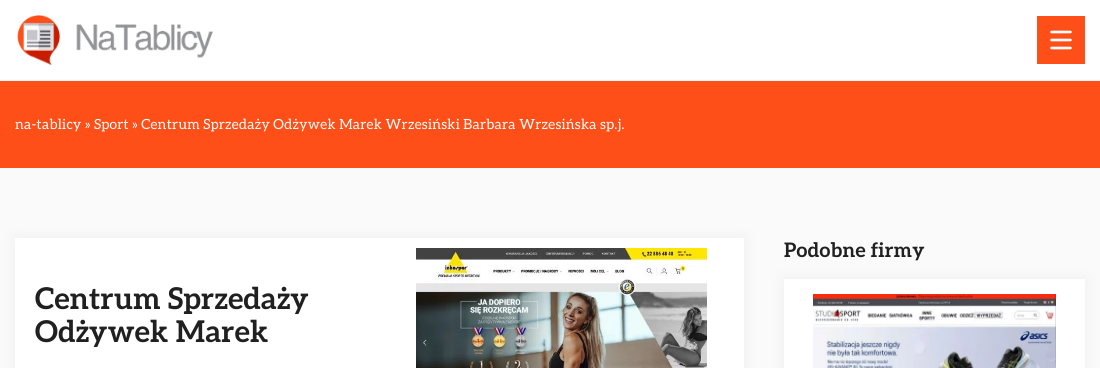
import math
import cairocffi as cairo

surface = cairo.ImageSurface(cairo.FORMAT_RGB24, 1100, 368)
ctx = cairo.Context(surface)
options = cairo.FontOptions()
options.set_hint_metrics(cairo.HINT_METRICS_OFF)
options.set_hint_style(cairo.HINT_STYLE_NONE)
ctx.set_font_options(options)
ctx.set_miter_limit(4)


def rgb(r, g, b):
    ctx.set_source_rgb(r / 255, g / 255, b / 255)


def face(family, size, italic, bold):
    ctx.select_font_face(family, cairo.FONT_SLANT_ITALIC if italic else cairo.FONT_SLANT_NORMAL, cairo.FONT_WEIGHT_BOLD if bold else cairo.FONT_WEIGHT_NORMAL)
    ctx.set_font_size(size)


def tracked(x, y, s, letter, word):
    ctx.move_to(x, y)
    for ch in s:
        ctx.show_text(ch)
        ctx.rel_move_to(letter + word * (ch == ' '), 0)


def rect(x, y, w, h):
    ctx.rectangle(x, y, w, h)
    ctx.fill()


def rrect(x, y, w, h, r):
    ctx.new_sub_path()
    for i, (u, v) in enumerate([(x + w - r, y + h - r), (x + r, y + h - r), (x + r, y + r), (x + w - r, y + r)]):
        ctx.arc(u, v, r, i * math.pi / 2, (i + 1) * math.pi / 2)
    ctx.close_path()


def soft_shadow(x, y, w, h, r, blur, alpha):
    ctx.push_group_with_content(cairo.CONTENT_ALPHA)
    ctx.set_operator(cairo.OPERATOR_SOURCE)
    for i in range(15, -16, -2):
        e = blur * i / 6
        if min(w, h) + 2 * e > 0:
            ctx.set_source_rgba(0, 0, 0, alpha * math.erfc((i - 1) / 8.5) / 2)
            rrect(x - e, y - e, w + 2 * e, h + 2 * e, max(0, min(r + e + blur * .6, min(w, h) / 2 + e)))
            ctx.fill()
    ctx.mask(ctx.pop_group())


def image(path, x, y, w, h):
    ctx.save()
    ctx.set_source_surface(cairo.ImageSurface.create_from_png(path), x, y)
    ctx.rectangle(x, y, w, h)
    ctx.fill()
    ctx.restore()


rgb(250, 250, 250)
ctx.paint()
rgb(255, 255, 255)
rect(0, 0, 1100, 80)
rgb(242, 242, 242)
rect(0, 80, 1100, 1)
image('image0.png', 17, 15, 196, 50)
rgb(255, 79, 24)
rect(1037, 16, 48, 48)
ctx.new_path()
ctx.move_to(1051.5, 32)
ctx.line_to(1070.5, 32)
ctx.move_to(1051.5, 40)
ctx.line_to(1070.5, 40)
ctx.move_to(1070.5, 48)
ctx.line_to(1051.5, 48)
rgb(255, 255, 255)
ctx.set_line_width(2.6)
ctx.set_line_cap(cairo.LINE_CAP_ROUND)
ctx.stroke()
rgb(255, 79, 24)
rect(0, 81, 1100, 87)
face('Aleo', 14, 0, 0)
rgb(255, 255, 255)
tracked(15, 129, 'na-tablicy » Sport » Centrum Sprzedaży Odżywek Marek Wrzesiński Barbara Wrzesińska sp.j.', 0.3, 0)
face('Aleo', 20, 0, 1)
rgb(32, 32, 32)
tracked(784, 257, 'Podobne firmy', 0.3, 0)
rgb(0, 0, 0)
soft_shadow(784, 279, 301, 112, 0, 7.5, 0.05)
rgb(255, 255, 255)
rect(784, 279, 301, 89)
image('image1.png', 813, 294, 243, 74)
rgb(0, 0, 0)
soft_shadow(15, 238, 729, 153, 0, 7.5, 0.05)
rgb(255, 255, 255)
rect(15, 238, 729, 130)
face('Aleo', 30, 0, 1)
rgb(32, 32, 32)
tracked(35, 309, 'Centrum Sprzedaży', 0.3, 0)
tracked(35, 342, 'Odżywek Marek', 0.3, 0)
image('image2.png', 416, 248, 291, 120)
surface.write_to_png('render.png')
